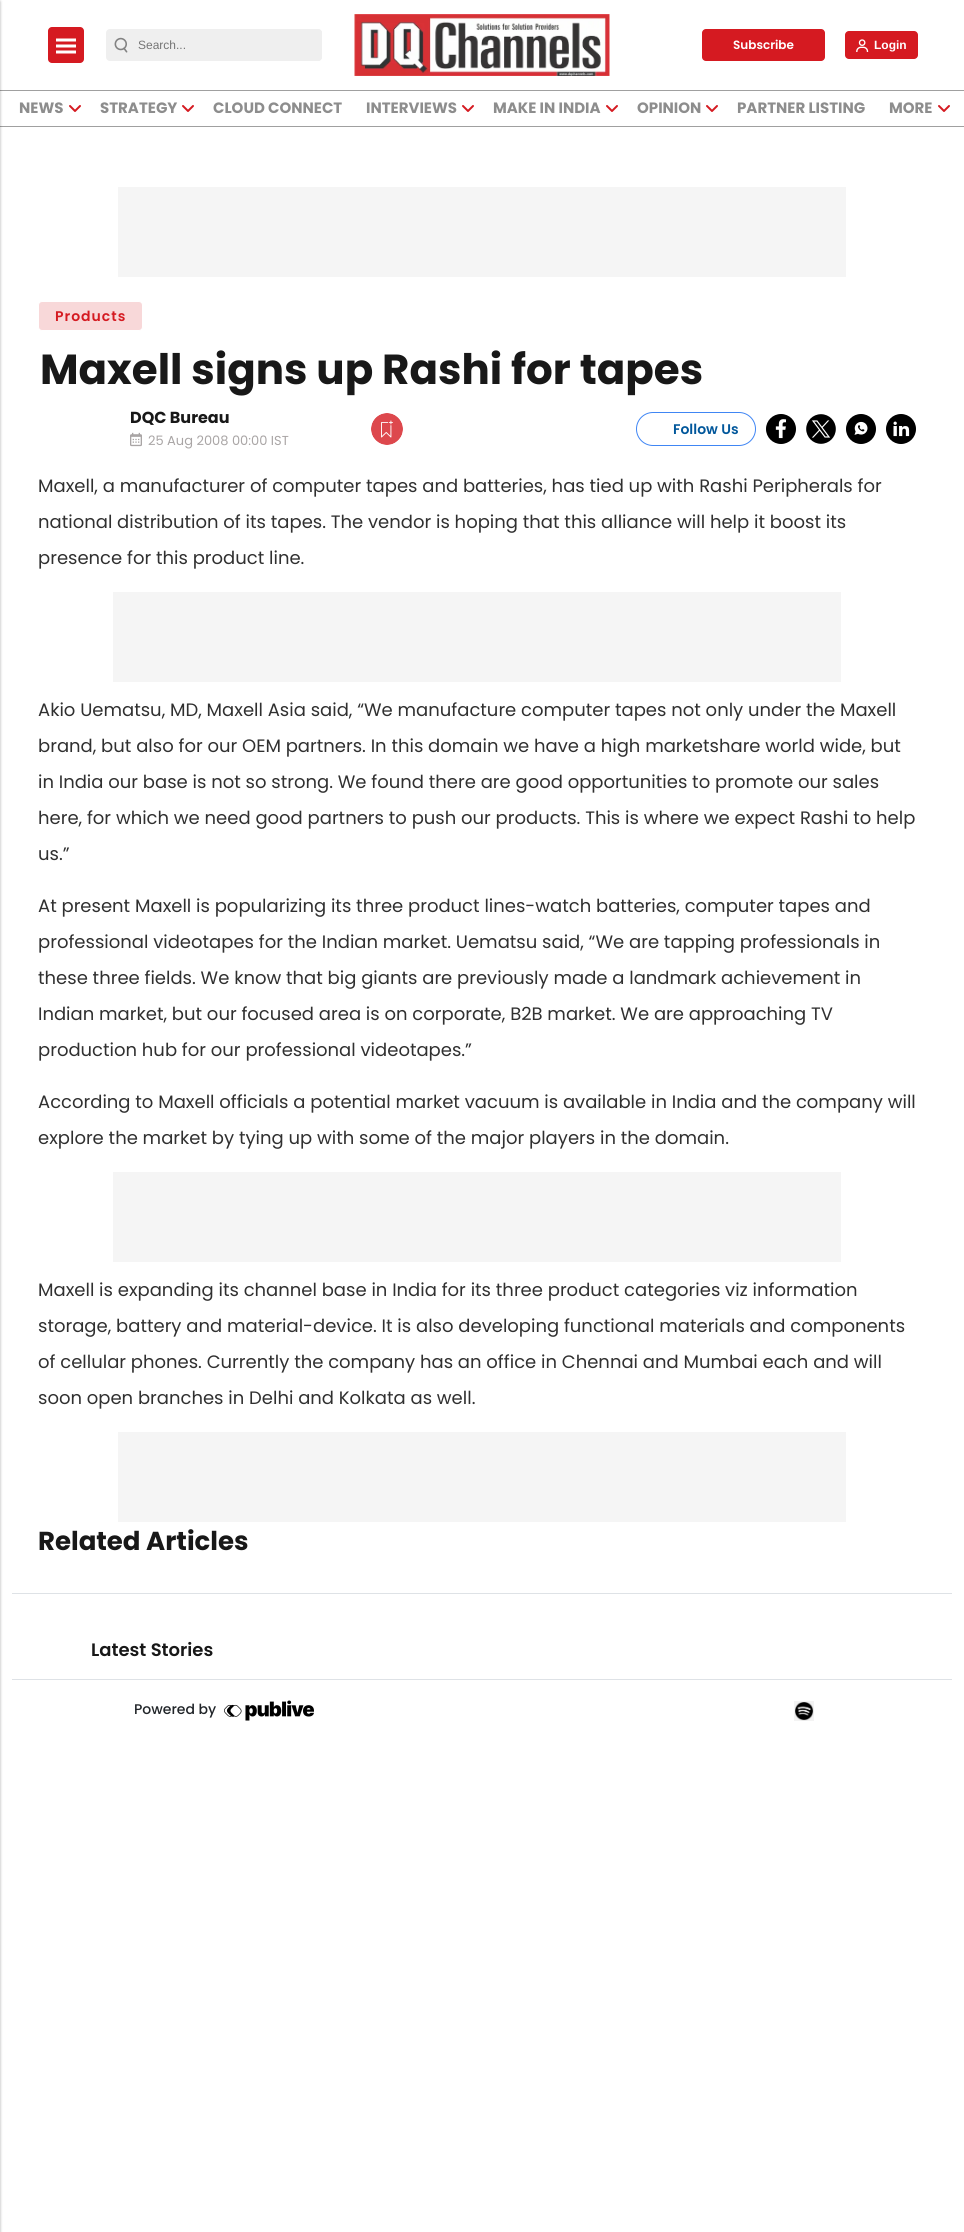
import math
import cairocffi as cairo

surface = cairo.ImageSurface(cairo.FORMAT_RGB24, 964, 2232)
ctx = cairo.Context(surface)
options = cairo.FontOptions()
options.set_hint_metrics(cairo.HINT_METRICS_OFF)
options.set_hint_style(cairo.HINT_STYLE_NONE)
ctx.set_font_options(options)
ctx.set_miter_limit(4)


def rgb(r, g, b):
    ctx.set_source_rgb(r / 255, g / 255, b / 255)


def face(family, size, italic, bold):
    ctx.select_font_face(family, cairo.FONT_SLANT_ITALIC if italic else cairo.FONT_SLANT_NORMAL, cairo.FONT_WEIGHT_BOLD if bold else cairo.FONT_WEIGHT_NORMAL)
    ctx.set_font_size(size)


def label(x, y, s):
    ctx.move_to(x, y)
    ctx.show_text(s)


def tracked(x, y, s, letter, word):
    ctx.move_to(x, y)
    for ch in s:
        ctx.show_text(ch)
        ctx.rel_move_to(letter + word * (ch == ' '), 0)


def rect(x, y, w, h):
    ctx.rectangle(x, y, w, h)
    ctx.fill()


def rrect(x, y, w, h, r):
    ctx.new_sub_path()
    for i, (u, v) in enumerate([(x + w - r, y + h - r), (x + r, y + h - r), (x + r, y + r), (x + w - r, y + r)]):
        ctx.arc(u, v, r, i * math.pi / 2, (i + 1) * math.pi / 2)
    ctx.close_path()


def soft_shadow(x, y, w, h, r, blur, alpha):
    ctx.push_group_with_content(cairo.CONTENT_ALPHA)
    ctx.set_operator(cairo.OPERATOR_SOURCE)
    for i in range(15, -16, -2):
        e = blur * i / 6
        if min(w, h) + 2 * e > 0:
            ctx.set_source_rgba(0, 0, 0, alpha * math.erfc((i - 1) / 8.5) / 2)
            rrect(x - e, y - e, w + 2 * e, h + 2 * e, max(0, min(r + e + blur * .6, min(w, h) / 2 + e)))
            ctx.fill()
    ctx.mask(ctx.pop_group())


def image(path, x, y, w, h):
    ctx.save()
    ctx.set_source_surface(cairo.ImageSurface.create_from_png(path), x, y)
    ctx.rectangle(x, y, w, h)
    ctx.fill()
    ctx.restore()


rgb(255, 255, 255)
ctx.paint()
rgb(160, 160, 160)
rect(0, 90, 964, 1)
rect(0, 126, 964, 1)
rgb(0, 0, 0)
soft_shadow(-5, 2, 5, 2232, 0, 1.5, 0.22)
soft_shadow(-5, 0, 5, 2232, 0, 1.5, 0.12)
rgb(213, 26, 33)
rrect(48, 27, 36, 36, 4)
ctx.fill()
ctx.new_path()
ctx.move_to(56, 52)
ctx.line_to(76, 52)
ctx.move_to(56, 46)
ctx.line_to(76, 46)
ctx.move_to(56, 40)
ctx.line_to(76, 40)
rgb(255, 255, 255)
ctx.set_line_width(3)
ctx.stroke()
rgb(239, 239, 239)
rrect(106, 29, 216, 32, 4)
ctx.fill()
image('image0.png', 114, 37, 14, 16)
rrect(136, 29, 186, 32, 4)
ctx.fill()
face('Liberation Sans', 12, 0, 0)
rgb(117, 117, 117)
label(138, 49, 'Search...')
image('image1.png', 354, 14, 256, 62)
rgb(213, 26, 33)
rrect(702, 29, 123, 32, 4)
ctx.fill()
face('Poppins SemiBold', 12, 0, 0)
rgb(255, 255, 255)
label(733, 49, 'Subscribe')
rgb(213, 26, 33)
rrect(845, 31, 73, 28, 4)
ctx.fill()
image('image2.png', 856, 39, 13, 13)
face('Liberation Sans', 12, 0, 1)
rgb(255, 255, 255)
label(874, 49, 'Login')
face('Poppins', 15, 0, 1)
rgb(141, 141, 141)
label(19, 113, 'NEWS')
ctx.new_path()
ctx.move_to(70, 106)
ctx.line_to(75, 111)
ctx.line_to(80, 106)
rgb(213, 26, 33)
ctx.set_line_width(2)
ctx.set_line_cap(cairo.LINE_CAP_ROUND)
ctx.set_line_join(cairo.LINE_JOIN_ROUND)
ctx.stroke()
rgb(141, 141, 141)
label(100, 113, 'STRATEGY')
ctx.new_path()
ctx.move_to(183, 106)
ctx.line_to(188, 111)
ctx.line_to(193, 106)
rgb(213, 26, 33)
ctx.stroke()
rgb(141, 141, 141)
label(213, 113, 'CLOUD CONNECT')
label(366, 113, 'INTERVIEWS')
ctx.new_path()
ctx.move_to(463, 106)
ctx.line_to(468, 111)
ctx.line_to(473, 106)
rgb(213, 26, 33)
ctx.stroke()
rgb(141, 141, 141)
label(493, 113, 'MAKE IN INDIA')
ctx.new_path()
ctx.move_to(607, 106)
ctx.line_to(612, 111)
ctx.line_to(617, 106)
rgb(213, 26, 33)
ctx.stroke()
rgb(141, 141, 141)
label(637, 113, 'OPINION')
ctx.new_path()
ctx.move_to(707, 106)
ctx.line_to(712, 111)
ctx.line_to(717, 106)
rgb(213, 26, 33)
ctx.stroke()
rgb(141, 141, 141)
label(737, 113, 'PARTNER LISTING')
label(889, 113, 'MORE')
ctx.new_path()
ctx.move_to(939, 106)
ctx.line_to(944, 111)
ctx.line_to(949, 106)
rgb(213, 26, 33)
ctx.stroke()
rgb(245, 245, 245)
rect(118, 187, 728, 90)
rgb(248, 216, 217)
rrect(38.5, 301.5, 104, 29, 3.5)
ctx.fill_preserve()
rgb(255, 255, 255)
ctx.set_line_width(1)
ctx.set_line_cap(cairo.LINE_CAP_BUTT)
ctx.set_line_join(cairo.LINE_JOIN_MITER)
ctx.stroke()
face('Poppins SemiBold', 14, 0, 0)
rgb(213, 26, 33)
tracked(55, 321, 'Products', 1, 0)
face('Poppins', 42, 0, 1)
rgb(24, 24, 24)
label(40, 384, 'Maxell signs up Rashi for tapes')
face('Poppins', 16, 0, 1)
label(130, 423, 'DQC Bureau')
image('image3.png', 130, 432, 12, 15)
face('Poppins', 13, 0, 0)
rgb(169, 165, 165)
label(148, 445, '25 Aug 2008 00:00 IST')
image('image4.png', 371, 413, 32, 32)
rrect(636.5, 412.5, 119, 33, 16.5)
rgb(64, 134, 244)
ctx.stroke()
face('Poppins SemiBold', 14, 0, 0)
rgb(1, 87, 155)
label(673, 434, 'Follow Us')
image('image5.png', 766, 414, 30, 30)
image('image6.png', 806, 414, 30, 30)
image('image7.png', 846, 414, 30, 30)
image('image8.png', 886, 414, 30, 30)
face('Poppins', 18, 0, 0)
rgb(48, 48, 48)
label(38, 492, 'Maxell, a manufacturer of computer tapes and batteries, has tied up with Rashi Peripherals for')
label(38, 528, 'national distribution of its tapes. The vendor is hoping that this alliance will help it boost its')
label(38, 564, 'presence for this product line.')
rgb(245, 245, 245)
rect(113, 592, 728, 90)
rgb(48, 48, 48)
label(38, 716, 'Akio Uematsu, MD, Maxell Asia said, “We manufacture computer tapes not only under the Maxell')
label(38, 752, 'brand, but also for our OEM partners. In this domain we have a high marketshare world wide, but')
label(38, 788, 'in India our base is not so strong. We found there are good opportunities to promote our sales')
label(38, 824, 'here, for which we need good partners to push our products. This is where we expect Rashi to help')
label(38, 860, 'us.”')
label(38, 912, 'At present Maxell is popularizing its three product lines-watch batteries, computer tapes and')
label(38, 948, 'professional videotapes for the Indian market. Uematsu said, “We are tapping professionals in')
label(38, 984, 'these three fields. We know that big giants are previously made a landmark achievement in')
label(38, 1020, 'Indian market, but our focused area is on corporate, B2B market. We are approaching TV')
label(38, 1056, 'production hub for our professional videotapes.”')
label(38, 1108, 'According to Maxell officials a potential market vacuum is available in India and the company will')
label(38, 1144, 'explore the market by tying up with some of the major players in the domain.')
rgb(245, 245, 245)
rect(113, 1172, 728, 90)
rgb(48, 48, 48)
label(38, 1296, 'Maxell is expanding its channel base in India for its three product categories viz information')
label(38, 1332, 'storage, battery and material-device. It is also developing functional materials and components')
label(38, 1368, 'of cellular phones. Currently the company has an office in Chennai and Mumbai each and will')
label(38, 1404, 'soon open branches in Delhi and Kolkata as well.')
rgb(245, 245, 245)
rect(118, 1432, 728, 90)
face('Poppins', 26, 0, 1)
rgb(24, 24, 24)
label(38, 1550, 'Related Articles')
rgb(222, 226, 230)
rect(12, 1593, 940, 1)
rect(12, 1679, 940, 1)
face('Poppins SemiBold', 18, 0, 0)
rgb(24, 24, 24)
label(91, 1656, 'Latest Stories')
face('Poppins Medium', 14, 0, 0)
rgb(33, 37, 41)
label(134, 1714, 'Powered by')
image('image9.png', 224, 1700, 90, 21)
image('image10.png', 794, 1701, 20, 20)
surface.write_to_png('render.png')
